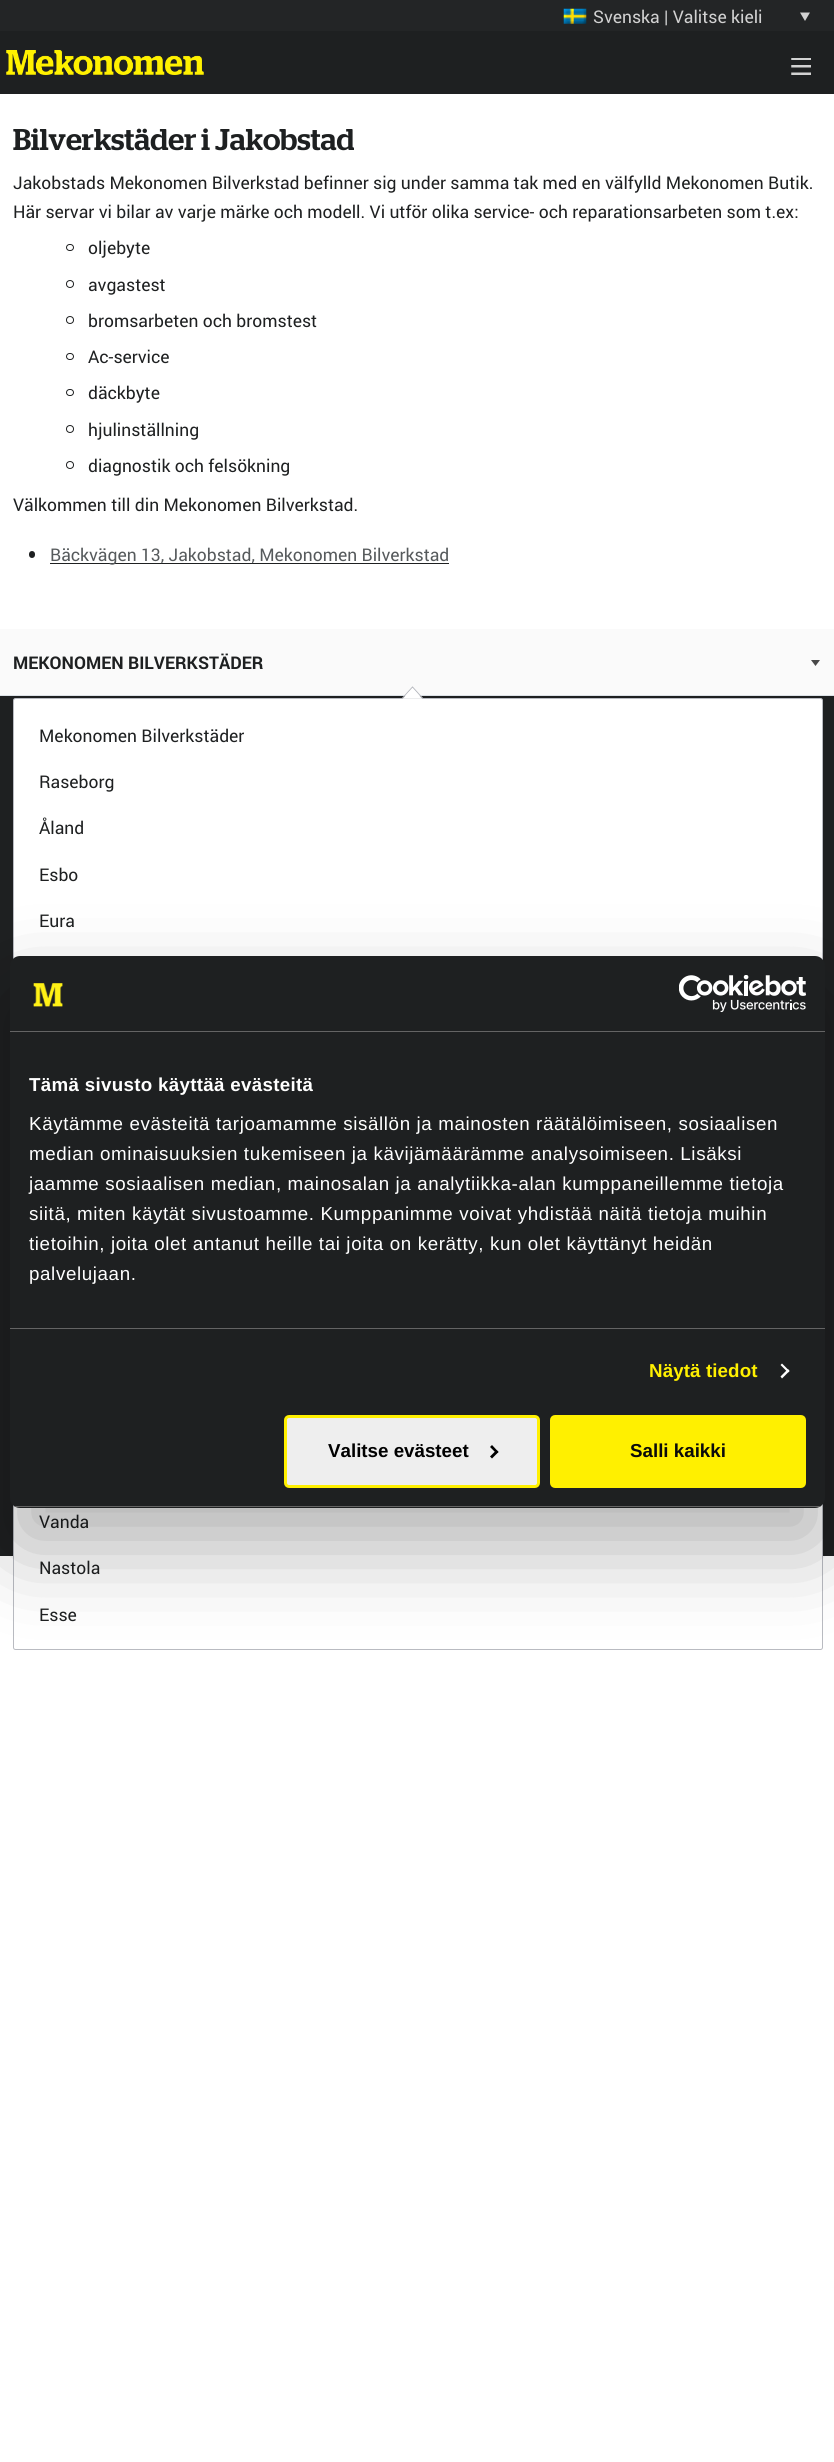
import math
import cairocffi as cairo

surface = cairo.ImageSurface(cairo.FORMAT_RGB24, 834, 2462)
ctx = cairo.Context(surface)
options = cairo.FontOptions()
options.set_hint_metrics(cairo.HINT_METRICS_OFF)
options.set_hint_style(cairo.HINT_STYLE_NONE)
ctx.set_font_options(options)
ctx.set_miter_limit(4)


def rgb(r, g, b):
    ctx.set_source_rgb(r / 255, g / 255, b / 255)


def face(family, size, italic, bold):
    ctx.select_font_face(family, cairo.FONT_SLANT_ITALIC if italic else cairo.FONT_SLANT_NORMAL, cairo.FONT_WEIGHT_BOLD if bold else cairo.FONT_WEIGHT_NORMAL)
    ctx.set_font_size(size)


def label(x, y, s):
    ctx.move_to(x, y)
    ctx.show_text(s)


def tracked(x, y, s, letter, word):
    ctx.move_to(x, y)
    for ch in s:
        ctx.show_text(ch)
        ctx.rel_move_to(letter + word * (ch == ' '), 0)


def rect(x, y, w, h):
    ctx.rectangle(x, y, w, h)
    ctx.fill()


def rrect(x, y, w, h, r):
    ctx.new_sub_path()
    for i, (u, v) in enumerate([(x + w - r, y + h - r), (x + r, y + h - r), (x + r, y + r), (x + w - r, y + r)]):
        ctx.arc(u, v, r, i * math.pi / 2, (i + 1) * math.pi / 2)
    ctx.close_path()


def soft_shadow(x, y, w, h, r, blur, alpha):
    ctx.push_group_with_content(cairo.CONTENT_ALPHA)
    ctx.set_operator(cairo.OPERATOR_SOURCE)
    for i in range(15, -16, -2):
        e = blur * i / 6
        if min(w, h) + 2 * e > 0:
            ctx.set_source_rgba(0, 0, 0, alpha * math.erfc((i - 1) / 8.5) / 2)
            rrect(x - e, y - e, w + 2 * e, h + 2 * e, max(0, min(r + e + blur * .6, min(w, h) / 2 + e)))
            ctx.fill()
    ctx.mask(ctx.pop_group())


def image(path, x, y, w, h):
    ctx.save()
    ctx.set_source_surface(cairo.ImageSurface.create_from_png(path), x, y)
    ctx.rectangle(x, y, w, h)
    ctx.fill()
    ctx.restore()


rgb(255, 255, 255)
ctx.paint()
rgb(30, 32, 33)
rect(0, 31, 834, 63)
rgb(35, 37, 38)
rect(0, 0, 834, 31)
image('image0.png', 563, 8, 24, 16)
face('Roboto', 17.5, 0, 0)
rgb(210, 210, 210)
label(593, 23, 'Svenska | Valitse kieli')
ctx.new_path()
ctx.move_to(800, 12.5)
ctx.line_to(810, 12.5)
ctx.line_to(805, 21)
ctx.close_path()
ctx.fill()
image('image1.png', 6, 50, 198, 25)
image('image2.png', 791, 58, 20, 17)
face('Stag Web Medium', 30, 0, 0)
rgb(30, 32, 33)
label(13, 150, 'Bilverkstäder i Jakobstad')
face('Roboto', 17.5, 0, 0)
label(13, 189, 'Jakobstads Mekonomen Bilverkstad befinner sig under samma tak med en välfylld Mekonomen Butik.')
label(13, 218, 'Här servar vi bilar av varje märke och modell. Vi utför olika service- och reparationsarbeten som t.ex:')
rrect(66.5, 244.5, 7, 6, 3)
ctx.set_line_width(1)
ctx.stroke()
label(88, 254, 'oljebyte')
ctx.new_path()
ctx.arc(70, 284, 3.5, 0, 2 * math.pi)
ctx.stroke()
label(88, 291, 'avgastest')
ctx.new_path()
ctx.arc(70, 320, 3.5, 0, 2 * math.pi)
ctx.stroke()
label(88, 327, 'bromsarbeten och bromstest')
rrect(66.5, 353.5, 7, 6, 3)
ctx.stroke()
label(88, 363, 'Ac-service')
rrect(66.5, 389.5, 7, 6, 3)
ctx.stroke()
label(88, 399, 'däckbyte')
ctx.new_path()
ctx.arc(70, 429, 3.5, 0, 2 * math.pi)
ctx.stroke()
label(88, 436, 'hjulinställning')
ctx.new_path()
ctx.arc(70, 465, 3.5, 0, 2 * math.pi)
ctx.stroke()
label(88, 472, 'diagnostik och felsökning')
label(13, 511, 'Välkommen till din Mekonomen Bilverkstad.')
rrect(29, 551, 6, 7, 3)
ctx.fill()
rect(50, 563, 399, 1)
rgb(86, 90, 92)
label(50, 561, 'Bäckvägen 13, Jakobstad, Mekonomen Bilverkstad')
rgb(250, 250, 250)
rect(0, 629, 834, 66)
rgb(220, 225, 230)
rect(0, 695, 834, 1)
face('Roboto', 17.5, 0, 1)
rgb(30, 32, 33)
label(13, 669, 'MEKONOMEN BILVERKSTÄDER')
rgb(72, 72, 72)
ctx.new_path()
ctx.move_to(820, 660)
ctx.line_to(815.5, 666)
ctx.line_to(811, 660)
ctx.close_path()
ctx.fill()
rgb(30, 32, 33)
rect(0, 696, 834, 860)
rgb(255, 255, 255)
rrect(13.5, 698.5, 809, 951, 2)
ctx.fill_preserve()
rgb(185, 187, 193)
ctx.stroke()
image('image3.png', 402, 686, 21, 13)
face('Roboto', 17.5, 0, 0)
rgb(30, 32, 33)
label(39, 742, 'Mekonomen Bilverkstäder')
label(39, 788, 'Raseborg')
label(39, 834, 'Åland')
label(39, 881, 'Esbo')
label(39, 927, 'Eura')
label(39, 1528, 'Vanda')
label(39, 1574, 'Nastola')
label(39, 1621, 'Esse')
rgb(0, 0, 0)
soft_shadow(10, 996, 815, 552, 10, 42.5, 0.3)
rgb(30, 32, 33)
rrect(10, 956, 815, 552, 10)
ctx.fill()
rgb(100, 100, 100)
rect(10, 1031, 815, 1)
image('image4.png', 33, 983, 30, 24)
image('image5.png', 679, 975, 127, 38)
rect(10, 1328, 815, 1)
face('Liberation Sans', 18.75, 0, 1)
rgb(255, 255, 255)
tracked(29, 1091, 'Tämä sivusto käyttää evästeitä', 0.3, 0)
face('Liberation Sans', 18.75, 0, 0)
tracked(29, 1130, 'Käytämme evästeitä tarjoamamme sisällön ja mainosten räätälöimiseen, sosiaalisen', 0.62, 0)
tracked(29, 1160, 'median ominaisuuksien tukemiseen ja kävijämäärämme analysoimiseen. Lisäksi', 0.62, 0)
tracked(29, 1190, 'jaamme sosiaalisen median, mainosalan ja analytiikka-alan kumppaneillemme tietoja', 0.62, 0)
tracked(29, 1220, 'siitä, miten käytät sivustoamme. Kumppanimme voivat yhdistää näitä tietoja muihin', 0.62, 0)
tracked(29, 1250, 'tietoihin, joita olet antanut heille tai joita on kerätty, kun olet käyttänyt heidän', 0.62, 0)
tracked(29, 1280, 'palvelujaan.', 0.62, 0)
face('Liberation Sans', 18.75, 0, 1)
rgb(255, 240, 0)
tracked(649, 1377, 'Näytä tiedot', 0.1, 0)
rgb(255, 255, 255)
ctx.new_path()
ctx.move_to(782, 1363.5)
ctx.line_to(789.5, 1371)
ctx.line_to(788, 1372.5)
ctx.line_to(780.5, 1365)
ctx.close_path()
ctx.fill()
ctx.new_path()
ctx.move_to(788, 1369)
ctx.line_to(789.5, 1371)
ctx.line_to(782, 1378.5)
ctx.line_to(780.5, 1376.5)
ctx.close_path()
ctx.fill()
ctx.save()
rrect(10, 956, 815, 552, 10)
ctx.clip()
rgb(100, 100, 100)
rect(10, 1506, 815, 1)
ctx.restore()
rgb(238, 238, 238)
rrect(285.5, 1416.5, 253, 70, 3.5)
ctx.fill_preserve()
rgb(255, 240, 0)
ctx.set_line_width(3)
ctx.stroke()
rgb(0, 0, 0)
label(328, 1457, 'Valitse evästeet')
ctx.new_path()
ctx.move_to(492, 1445)
ctx.line_to(498.5, 1452)
ctx.line_to(496.5, 1453.5)
ctx.line_to(490, 1447)
ctx.close_path()
ctx.fill()
ctx.new_path()
ctx.move_to(496.5, 1450)
ctx.line_to(498.5, 1452)
ctx.line_to(492, 1458.5)
ctx.line_to(490, 1456.5)
ctx.close_path()
ctx.fill()
rgb(255, 240, 0)
rrect(551.5, 1416.5, 253, 70, 3.5)
ctx.fill_preserve()
ctx.stroke()
rgb(11, 11, 11)
label(630, 1457, 'Salli kaikki')
surface.write_to_png('render.png')
